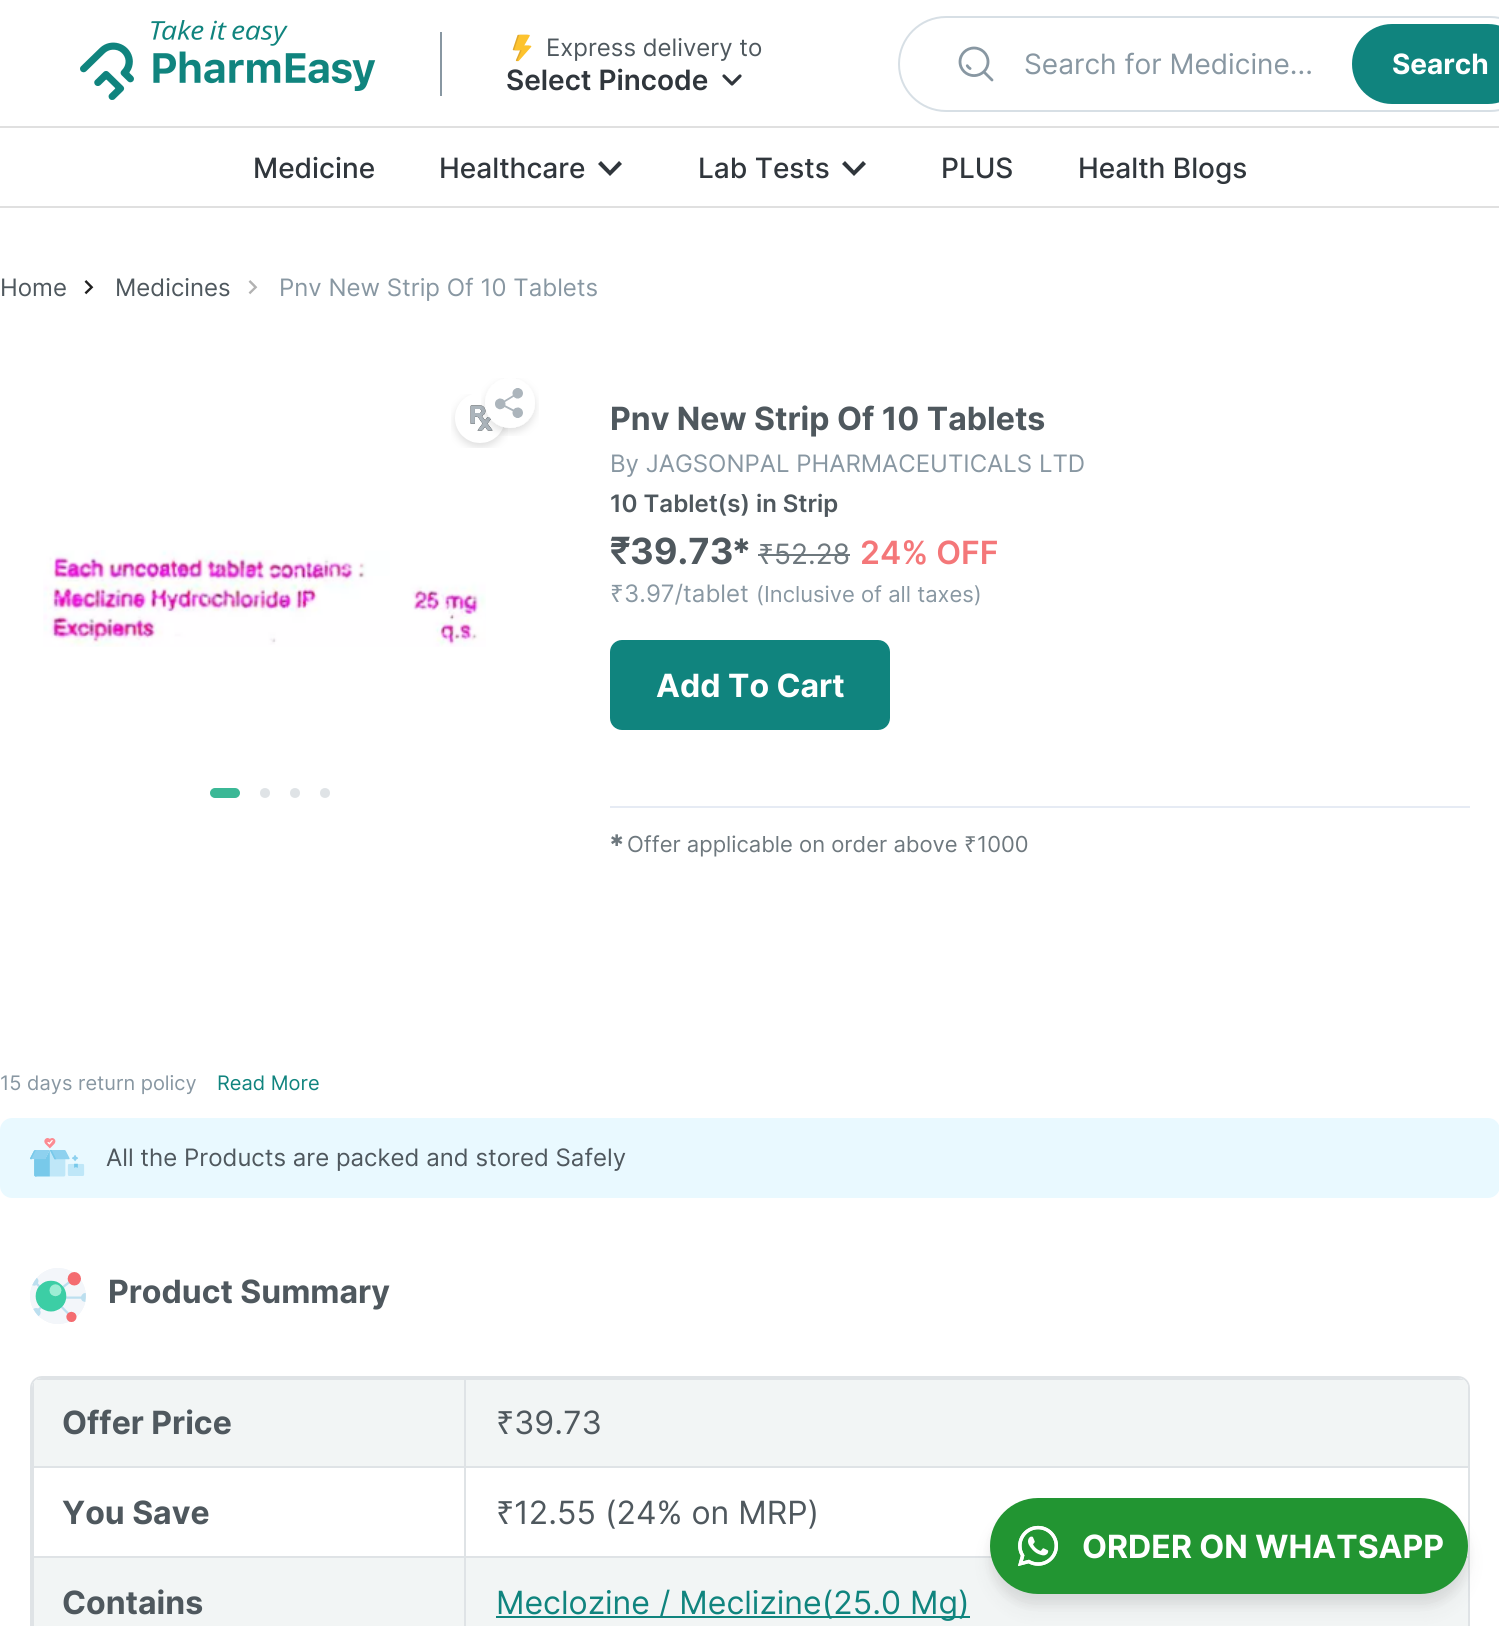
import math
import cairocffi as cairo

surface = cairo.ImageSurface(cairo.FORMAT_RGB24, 1499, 1626)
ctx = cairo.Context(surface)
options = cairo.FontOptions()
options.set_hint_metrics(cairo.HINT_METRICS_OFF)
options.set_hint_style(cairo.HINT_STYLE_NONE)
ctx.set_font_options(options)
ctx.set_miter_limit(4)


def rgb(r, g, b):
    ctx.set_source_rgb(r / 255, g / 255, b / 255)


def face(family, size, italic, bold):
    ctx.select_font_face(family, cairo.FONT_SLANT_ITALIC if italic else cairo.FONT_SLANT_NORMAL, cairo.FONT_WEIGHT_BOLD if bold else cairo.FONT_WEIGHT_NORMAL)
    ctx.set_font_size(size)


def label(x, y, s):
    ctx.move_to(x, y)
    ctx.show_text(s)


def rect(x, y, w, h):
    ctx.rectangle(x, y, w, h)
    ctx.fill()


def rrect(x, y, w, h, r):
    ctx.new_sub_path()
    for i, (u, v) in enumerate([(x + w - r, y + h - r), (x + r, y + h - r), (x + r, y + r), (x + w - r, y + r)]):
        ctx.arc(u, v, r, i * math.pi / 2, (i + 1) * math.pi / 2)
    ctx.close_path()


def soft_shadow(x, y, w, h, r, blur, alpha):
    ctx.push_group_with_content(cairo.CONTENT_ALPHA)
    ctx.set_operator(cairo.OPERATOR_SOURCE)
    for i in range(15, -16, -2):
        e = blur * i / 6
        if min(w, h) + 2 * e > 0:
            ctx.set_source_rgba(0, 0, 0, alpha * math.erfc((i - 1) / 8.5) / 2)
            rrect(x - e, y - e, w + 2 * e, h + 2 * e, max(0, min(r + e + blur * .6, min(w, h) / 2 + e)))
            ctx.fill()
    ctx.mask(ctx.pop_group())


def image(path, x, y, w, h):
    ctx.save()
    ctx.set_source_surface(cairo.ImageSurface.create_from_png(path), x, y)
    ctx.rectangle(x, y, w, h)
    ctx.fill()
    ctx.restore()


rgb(255, 255, 255)
ctx.paint()
rgb(224, 224, 224)
rect(0, 126, 1499, 2)
image('image0.png', 80, 20, 296, 80)
rgb(136, 151, 162)
rect(440, 32, 2, 64)
image('image1.png', 512, 34, 20, 28)
face('Inter', 24, 0, 0)
rgb(79, 88, 94)
label(546, 56, 'Express delivery to')
face('Inter SemiBold', 28, 0, 0)
rgb(48, 54, 60)
label(506, 90, 'Select Pincode')
image('image2.png', 722, 74, 20, 12)
rrect(899, 17, 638, 94, 47)
rgb(215, 223, 229)
ctx.stroke()
image('image3.png', 958, 46, 36, 36)
face('Inter', 28, 0, 0)
rgb(136, 151, 162)
label(1024, 74, 'Search for Medicine...')
rgb(16, 132, 126)
rrect(1352, 24, 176, 80, 40)
ctx.fill()
face('Inter', 28, 0, 1)
rgb(255, 255, 255)
label(1392, 74, 'Search')
rgb(224, 224, 224)
rect(0, 206, 1499, 2)
face('Inter Medium', 28, 0, 0)
rgb(48, 54, 60)
label(253, 178, 'Medicine')
label(439, 178, 'Healthcare')
ctx.set_fill_rule(cairo.FILL_RULE_EVEN_ODD)
ctx.new_path()
ctx.move_to(619, 161)
ctx.line_to(610, 170.5)
ctx.line_to(601, 161)
ctx.line_to(598, 164)
ctx.line_to(610, 176)
ctx.line_to(622, 164)
ctx.close_path()
ctx.fill()
label(698, 178, 'Lab Tests')
ctx.new_path()
ctx.move_to(863, 161)
ctx.line_to(854, 170.5)
ctx.line_to(845, 161)
ctx.line_to(842, 164)
ctx.line_to(854, 176)
ctx.line_to(866, 164)
ctx.close_path()
ctx.fill()
label(941, 178, 'PLUS')
label(1078, 178, 'Health Blogs')
face('Inter', 24, 0, 0)
rgb(79, 88, 94)
label(0, 296, 'Home')
image('image4.png', 84, 280, 10, 15)
label(115, 296, 'Medicines')
image('image5.png', 248, 280, 10, 15)
rgb(136, 151, 162)
label(279, 296, 'Pnv New Strip Of 10 Tablets')
image('image8.png', 451, 394, 57, 54)
image('image6.png', 481, 378, 58, 58)
image('image7.png', 43, 550, 443, 97)
rgb(59, 184, 150)
rrect(211, 789, 28, 8, 4)
ctx.fill_preserve()
ctx.stroke()
rgb(223, 227, 230)
ctx.arc(265, 793, 4, 0, 2 * math.pi)
ctx.fill_preserve()
ctx.stroke()
ctx.arc(295, 793, 4, 0, 2 * math.pi)
ctx.fill_preserve()
ctx.stroke()
ctx.arc(325, 793, 4, 0, 2 * math.pi)
ctx.fill_preserve()
ctx.stroke()
face('Inter', 32, 0, 1)
rgb(79, 88, 94)
label(610, 430, 'Pnv New Strip Of 10 Tablets')
face('Inter', 24, 0, 0)
rgb(136, 151, 162)
label(610, 472, 'By JAGSONPAL PHARMACEUTICALS LTD')
face('Inter SemiBold', 24, 0, 0)
rgb(79, 88, 94)
label(610, 512, '10 Tablet(s) in Strip')
face('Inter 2', 36, 0, 1)
label(610, 564, '₹')
face('Inter', 36, 0, 1)
label(630, 564, '39.73')
face('DejaVu Sans', 20, 0, 0)
label(733, 553, '✱')
face('Noto Sans', 28, 0, 0)
rgb(110, 120, 126)
label(758, 564, '₹')
rect(758, 554, 16, 2)
face('Inter', 28, 0, 0)
label(774, 564, '52.28')
rect(774, 554, 76, 2)
face('Inter SemiBold', 32, 0, 0)
rgb(244, 119, 121)
label(860, 564, '24% OFF')
face('Noto Sans', 24, 0, 0)
rgb(136, 151, 162)
label(610, 602, '₹')
face('Inter', 24, 0, 0)
label(624, 602, '3.97/tablet')
face('Inter', 22, 0, 0)
label(756, 602, '(Inclusive of all taxes)')
rgb(16, 132, 126)
rrect(610, 640, 280, 90, 12)
ctx.fill()
face('Inter', 32, 0, 1)
rgb(255, 255, 255)
label(656, 697, 'Add To Cart')
rgb(230, 235, 244)
rect(610, 806, 860, 2)
face('DejaVu Sans', 16, 0, 0)
rgb(110, 120, 126)
label(610, 846, '✱')
face('Inter', 22, 0, 0)
label(627, 852, 'Offer applicable on order above')
face('Noto Sans', 22, 0, 0)
label(964, 852, '₹')
face('Inter', 22, 0, 0)
label(977, 852, '1000')
face('Inter', 20, 0, 0)
rgb(136, 151, 162)
label(0, 1090, '15 days return policy')
rgb(16, 132, 126)
label(217, 1090, 'Read More')
rgb(233, 249, 255)
rrect(0, 1118, 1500, 80, 12)
ctx.fill()
image('image9.png', 30, 1138, 55, 39)
face('Inter', 24, 0, 0)
rgb(79, 88, 94)
label(106, 1166, 'All the Products are packed and stored Safely')
image('image10.png', 30, 1268, 56, 56)
face('Inter', 32, 0, 1)
label(108, 1303, 'Product Summary')
rrect(31, 1377, 1438, 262, 11)
rgb(223, 227, 230)
ctx.stroke()
rgb(242, 245, 245)
ctx.new_path()
ctx.move_to(42, 1378)
ctx.line_to(1458, 1378)
ctx.curve_to(1463.5, 1378, 1468, 1382.5, 1468, 1388)
ctx.line_to(1468, 1468)
ctx.line_to(32, 1468)
ctx.line_to(32, 1388)
ctx.curve_to(32, 1382.5, 36.5, 1378, 42, 1378)
ctx.close_path()
ctx.fill()
ctx.save()
ctx.set_fill_rule(cairo.FILL_RULE_WINDING)
rrect(32, 1378, 1436, 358, 10)
ctx.clip()
rgb(223, 227, 230)
rect(464, 1378, 1004, 2)
ctx.restore()
rgb(223, 227, 230)
rect(32, 1466, 1436, 2)
rgb(242, 245, 245)
rect(34, 1558, 1434, 68)
rgb(223, 227, 230)
rect(32, 1556, 1436, 2)
rect(464, 1466, 2, 160)
rect(464, 1378, 2, 90)
ctx.save()
ctx.set_fill_rule(cairo.FILL_RULE_WINDING)
rrect(32, 1378, 1436, 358, 10)
ctx.clip()
rect(32, 1378, 434, 2)
ctx.restore()
rect(32, 1556, 2, 70)
rect(32, 1466, 2, 92)
ctx.save()
ctx.set_fill_rule(cairo.FILL_RULE_WINDING)
rrect(32, 1378, 1436, 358, 10)
ctx.clip()
rect(32, 1378, 2, 90)
ctx.restore()
rgb(79, 88, 94)
label(62, 1434, 'Offer Price')
face('Noto Sans', 32, 0, 0)
label(496, 1434, '₹')
face('Inter', 32, 0, 0)
label(514, 1434, '39.73')
face('Inter', 32, 0, 1)
label(62, 1524, 'You Save')
face('Noto Sans', 32, 0, 0)
label(496, 1524, '₹')
face('Inter', 32, 0, 0)
label(514, 1524, '12.55 (24% on MRP)')
face('Inter', 32, 0, 1)
label(62, 1614, 'Contains')
rgb(16, 132, 126)
rect(496, 1616, 474, 2)
face('Inter', 32, 0, 0)
label(496, 1614, 'Meclozine / Meclizine(25.0 Mg)')
rgb(33, 33, 33)
soft_shadow(990, 1508, 478, 96, 48, 5, 0.08)
soft_shadow(990, 1514, 478, 96, 48, 10, 0.06)
rgb(34, 149, 50)
rrect(990, 1498, 478, 96, 48)
ctx.fill()
image('image11.png', 1018, 1525, 40, 42)
face('Inter', 32, 0, 1)
rgb(255, 255, 255)
label(1082, 1558, 'ORDER ON WHATSAPP')
surface.write_to_png('render.png')
